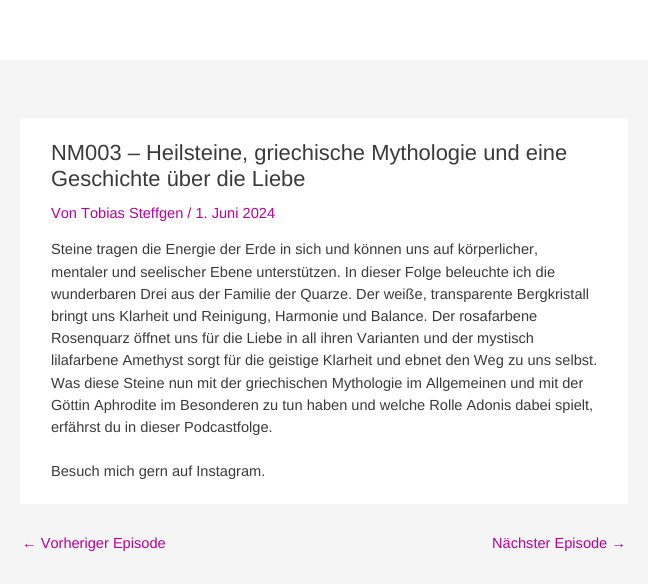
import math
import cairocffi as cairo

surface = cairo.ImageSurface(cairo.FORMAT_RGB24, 648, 584)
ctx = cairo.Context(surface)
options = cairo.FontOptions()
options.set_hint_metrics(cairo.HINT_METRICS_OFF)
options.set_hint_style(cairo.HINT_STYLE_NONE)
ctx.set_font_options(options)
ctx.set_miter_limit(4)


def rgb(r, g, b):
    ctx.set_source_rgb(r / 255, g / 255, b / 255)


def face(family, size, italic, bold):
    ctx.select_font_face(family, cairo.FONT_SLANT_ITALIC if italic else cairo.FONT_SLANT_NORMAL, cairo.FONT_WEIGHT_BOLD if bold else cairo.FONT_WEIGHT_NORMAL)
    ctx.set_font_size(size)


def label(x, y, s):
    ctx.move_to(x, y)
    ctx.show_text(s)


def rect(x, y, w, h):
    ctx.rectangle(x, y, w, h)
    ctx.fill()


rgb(245, 245, 245)
ctx.paint()
rgb(255, 255, 255)
rect(0, 0, 648, 60)
rect(20, 118, 608, 386)
face('Liberation Sans', 21.9, 0, 0)
rgb(58, 58, 58)
label(51, 160, 'NM003 – Heilsteine, griechische Mythologie und eine')
label(51, 186, 'Geschichte über die Liebe')
face('Liberation Sans', 14.6, 0, 0)
rgb(183, 1, 156)
label(51, 218, 'Von Tobias Steffgen / 1. Juni 2024')
rgb(58, 58, 58)
label(51, 254, 'Steine tragen die Energie der Erde in sich und können uns auf körperlicher,')
label(51, 277, 'mentaler und seelischer Ebene unterstützen. In dieser Folge beleuchte ich die')
label(51, 299, 'wunderbaren Drei aus der Familie der Quarze. Der weiße, transparente Bergkristall')
label(51, 321, 'bringt uns Klarheit und Reinigung, Harmonie und Balance. Der rosafarbene')
label(51, 343, 'Rosenquarz öffnet uns für die Liebe in all ihren Varianten und der mystisch')
label(51, 365, 'lilafarbene Amethyst sorgt für die geistige Klarheit und ebnet den Weg zu uns selbst.')
label(51, 388, 'Was diese Steine nun mit der griechischen Mythologie im Allgemeinen und mit der')
label(51, 410, 'Göttin Aphrodite im Besonderen zu tun haben und welche Rolle Adonis dabei spielt,')
label(51, 432, 'erfährst du in dieser Podcastfolge.')
label(51, 476, 'Besuch mich gern auf Instagram.')
rgb(183, 1, 156)
label(22, 548, '← Vorheriger Episode')
label(492, 548, 'Nächster Episode →')
surface.write_to_png('render.png')
